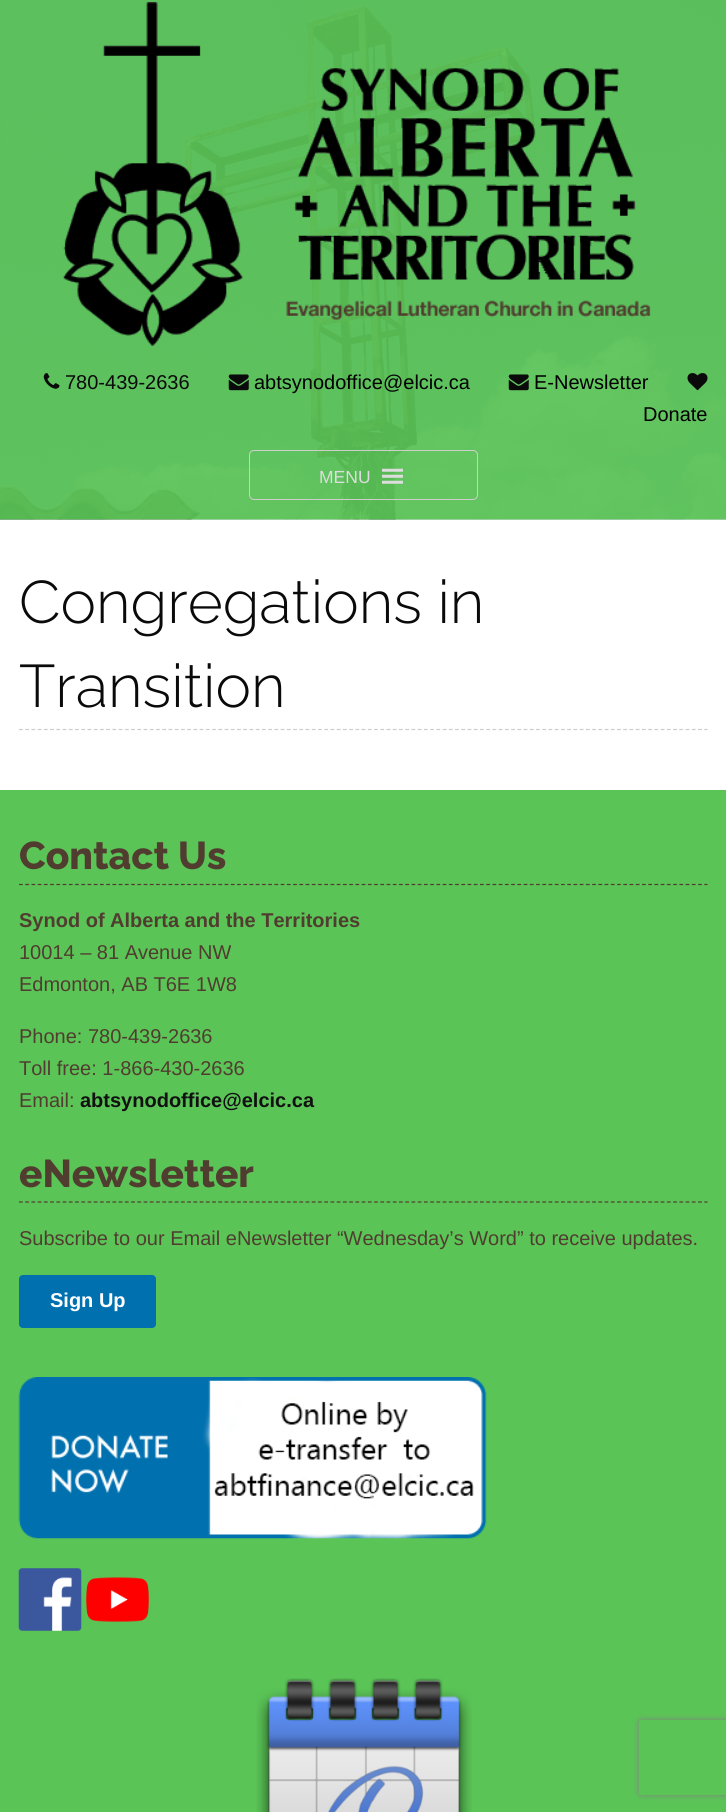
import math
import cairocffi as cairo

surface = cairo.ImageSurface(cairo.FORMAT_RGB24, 726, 1812)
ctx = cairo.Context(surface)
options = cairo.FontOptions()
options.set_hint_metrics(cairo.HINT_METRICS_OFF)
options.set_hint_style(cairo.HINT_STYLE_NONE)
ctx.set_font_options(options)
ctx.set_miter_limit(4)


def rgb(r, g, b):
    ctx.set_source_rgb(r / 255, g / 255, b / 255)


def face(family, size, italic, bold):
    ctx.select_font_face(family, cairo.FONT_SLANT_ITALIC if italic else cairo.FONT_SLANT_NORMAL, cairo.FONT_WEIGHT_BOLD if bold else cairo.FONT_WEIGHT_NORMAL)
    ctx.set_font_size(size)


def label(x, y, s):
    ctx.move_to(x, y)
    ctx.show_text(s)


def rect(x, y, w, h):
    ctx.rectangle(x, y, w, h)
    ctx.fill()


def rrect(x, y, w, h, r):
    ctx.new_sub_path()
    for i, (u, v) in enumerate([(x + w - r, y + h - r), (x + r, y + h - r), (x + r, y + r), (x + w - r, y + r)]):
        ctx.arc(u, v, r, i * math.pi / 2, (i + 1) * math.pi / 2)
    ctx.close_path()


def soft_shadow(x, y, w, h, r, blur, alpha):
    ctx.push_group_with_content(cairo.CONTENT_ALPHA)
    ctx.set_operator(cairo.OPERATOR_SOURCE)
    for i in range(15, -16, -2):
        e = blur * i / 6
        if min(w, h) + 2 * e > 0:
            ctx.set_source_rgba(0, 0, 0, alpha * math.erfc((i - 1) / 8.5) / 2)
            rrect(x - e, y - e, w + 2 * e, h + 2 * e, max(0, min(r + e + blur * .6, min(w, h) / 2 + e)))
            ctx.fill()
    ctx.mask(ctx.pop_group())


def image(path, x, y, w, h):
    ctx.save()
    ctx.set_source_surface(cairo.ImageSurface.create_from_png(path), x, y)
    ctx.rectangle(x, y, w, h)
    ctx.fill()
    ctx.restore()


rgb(255, 255, 255)
ctx.paint()
image('image0.png', 0, 0, 726, 520)
image('image1.png', 63, 2, 588, 344)
image('image2.png', 43, 373, 17, 16)
face('Liberation Sans', 20, 0, 0)
rgb(10, 10, 10)
label(65, 389, '780-439-2636')
image('image3.png', 228, 374, 21, 17)
rgb(0, 0, 0)
label(254, 389, 'abtsynodoffice@elcic.ca')
image('image4.png', 508, 374, 21, 17)
label(534, 389, 'E-Newsletter')
image('image5.png', 687, 373, 21, 18)
label(643, 421, 'Donate')
rrect(249.5, 450.5, 228, 49, 4.5)
rgb(206, 206, 206)
ctx.set_line_width(1)
ctx.stroke()
face('Liberation Sans', 17.5, 0, 0)
rgb(221, 221, 221)
label(319, 483, 'MENU')
image('image6.png', 382, 468, 21, 16)
ctx.new_path()
ctx.move_to(19, 729.5)
ctx.line_to(707.5, 729.5)
rgb(204, 204, 204)
ctx.set_line_width(1.2)
ctx.set_dash([3.75, 2.48])
ctx.stroke()
face('Raleway Light', 60, 0, 0)
rgb(10, 10, 10)
label(19, 623, 'Congregations in')
label(19, 707, 'Transition')
rgb(90, 196, 86)
rect(0, 790, 726, 1022)
ctx.new_path()
ctx.move_to(19, 884.5)
ctx.line_to(707.5, 884.5)
rgb(80, 61, 48)
ctx.stroke()
face('Raleway ExtraBold', 38.75, 0, 0)
label(19, 869, 'Contact Us')
face('Liberation Sans', 20, 0, 1)
label(19, 927, 'Synod of Alberta and the Territories')
face('Liberation Sans', 20, 0, 0)
label(19, 959, '10014 – 81 Avenue NW')
label(19, 991, 'Edmonton, AB T6E 1W8')
label(19, 1043, 'Phone: 780-439-2636')
label(19, 1075, 'Toll free: 1-866-430-2636')
label(19, 1107, 'Email:')
face('Liberation Sans', 20, 0, 1)
rgb(17, 17, 17)
label(80, 1107, 'abtsynodoffice@elcic.ca')
ctx.new_path()
ctx.move_to(19, 1202)
ctx.line_to(707.5, 1202)
rgb(80, 61, 48)
ctx.stroke()
face('Raleway ExtraBold', 38.75, 0, 0)
label(19, 1187, 'eNewsletter')
face('Liberation Sans', 20, 0, 0)
label(19, 1245, 'Subscribe to our Email eNewsletter “Wednesday’s Word” to receive updates.')
rgb(0, 112, 175)
rrect(19, 1275, 137, 53, 4)
ctx.fill()
face('Liberation Sans', 20, 0, 1)
rgb(255, 255, 255)
label(50, 1307, 'Sign Up')
image('image7.png', 18, 1377, 469, 162)
image('image8.png', 18, 1568, 64, 63)
image('image9.png', 86, 1577, 63, 45)
image('image10.png', 256, 1678, 216, 134)
ctx.save()
ctx.set_fill_rule(cairo.FILL_RULE_EVEN_ODD)
ctx.new_path()
ctx.move_to(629, 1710)
ctx.line_to(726, 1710)
ctx.line_to(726, 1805)
ctx.line_to(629, 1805)
ctx.close_path()
ctx.move_to(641.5, 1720)
ctx.line_to(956.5, 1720)
ctx.curve_to(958, 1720, 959, 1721, 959, 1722.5)
ctx.line_to(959, 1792.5)
ctx.curve_to(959, 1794, 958, 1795, 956.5, 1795)
ctx.line_to(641.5, 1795)
ctx.curve_to(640, 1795, 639, 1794, 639, 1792.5)
ctx.line_to(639, 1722.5)
ctx.curve_to(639, 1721, 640, 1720, 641.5, 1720)
ctx.close_path()
ctx.clip()
rgb(128, 128, 128)
soft_shadow(639, 1720, 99, 75, 2.5, 3, 1)
ctx.restore()
surface.write_to_png('render.png')
